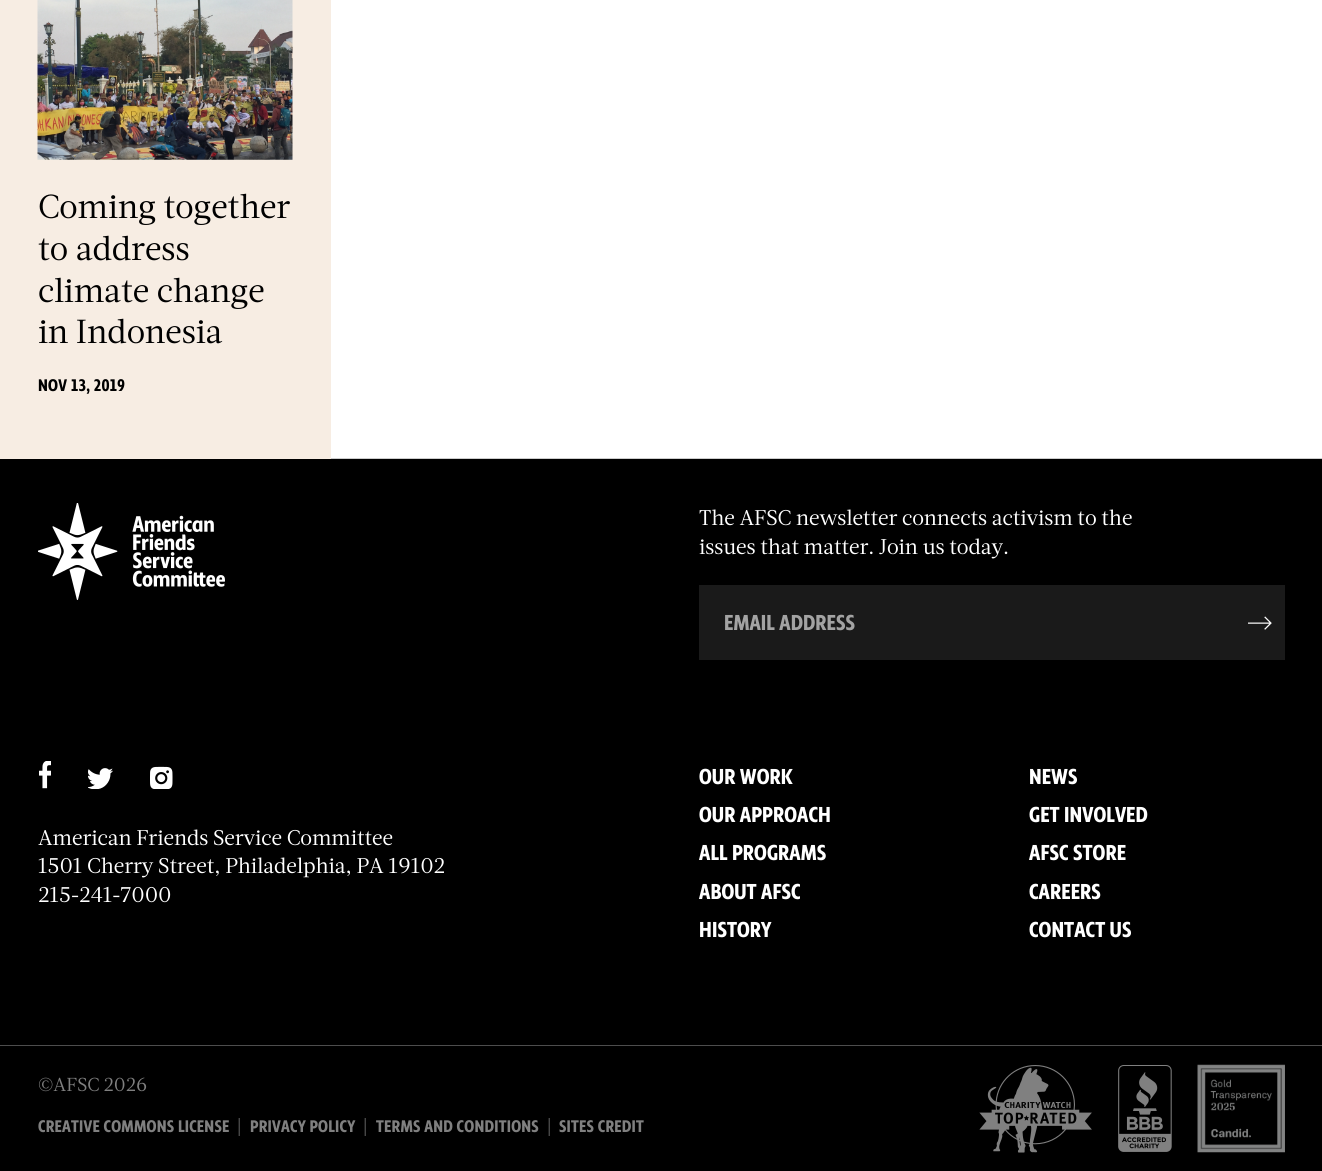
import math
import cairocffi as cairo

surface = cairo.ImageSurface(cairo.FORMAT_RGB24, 1322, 1171)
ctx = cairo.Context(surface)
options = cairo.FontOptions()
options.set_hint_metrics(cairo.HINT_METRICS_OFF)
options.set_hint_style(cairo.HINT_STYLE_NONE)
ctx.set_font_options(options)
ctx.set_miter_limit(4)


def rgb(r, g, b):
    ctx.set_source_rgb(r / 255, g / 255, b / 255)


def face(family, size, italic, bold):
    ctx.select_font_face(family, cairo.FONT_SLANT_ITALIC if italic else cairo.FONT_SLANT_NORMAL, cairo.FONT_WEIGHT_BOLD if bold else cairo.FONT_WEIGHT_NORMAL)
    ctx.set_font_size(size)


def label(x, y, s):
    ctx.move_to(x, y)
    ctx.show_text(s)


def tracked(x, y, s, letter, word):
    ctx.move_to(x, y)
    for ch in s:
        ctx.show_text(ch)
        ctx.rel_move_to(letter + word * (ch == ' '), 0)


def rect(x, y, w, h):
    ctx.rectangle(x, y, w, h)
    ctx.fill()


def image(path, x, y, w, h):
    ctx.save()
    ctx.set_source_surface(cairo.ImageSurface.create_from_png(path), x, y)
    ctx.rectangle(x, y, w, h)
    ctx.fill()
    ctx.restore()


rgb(0, 0, 0)
ctx.paint()
rgb(255, 255, 255)
rect(331, 0, 991, 458)
rgb(247, 237, 227)
ctx.rectangle(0.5, -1.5, 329, 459)
ctx.fill_preserve()
ctx.set_line_width(3)
ctx.stroke()
image('image0.png', 37, 0, 256, 160)
face('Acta', 33.25, 0, 0)
rgb(0, 0, 0)
tracked(38, 218, 'Coming together', -0.1, 0)
tracked(38, 260, 'to address', -0.1, 0)
tracked(38, 302, 'climate change', -0.1, 0)
tracked(38, 343, 'in Indonesia', -0.1, 0)
face('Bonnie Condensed', 17.5, 0, 1)
tracked(38, 391, 'NOV 13, 2019', 0.25, 0)
rgb(204, 204, 204)
rect(331, 458, 991, 1)
image('image1.png', 38, 503, 187, 97)
face('Acta', 21.25, 0, 0)
rgb(255, 255, 255)
tracked(699, 525, 'The AFSC newsletter connects activism to the', -0.1, 0)
tracked(699, 554, 'issues that matter. Join us today.', -0.1, 0)
rgb(26, 26, 26)
rect(699, 585, 586, 75)
face('Bonnie Condensed', 22.5, 0, 1)
rgb(163, 163, 163)
tracked(724, 630, 'EMAIL ADDRESS', 0.1, 0)
image('image2.png', 1248, 616, 24, 14)
image('image3.png', 39, 761, 12, 28)
image('image4.png', 88, 768, 25, 21)
image('image5.png', 150, 766, 23, 23)
face('Acta', 21.25, 0, 0)
rgb(255, 255, 255)
tracked(38, 845, 'American Friends Service Committee', -0.1, 0)
tracked(38, 873, '1501 Cherry Street, Philadelphia, PA 19102', -0.1, 0)
tracked(38, 902, '215-241-7000', -0.1, 0)
face('Bonnie Condensed', 22.5, 0, 1)
tracked(699, 784, 'OUR WORK', 0.1, 0)
tracked(699, 822, 'OUR APPROACH', 0.1, 0)
tracked(699, 860, 'ALL PROGRAMS', 0.1, 0)
tracked(699, 899, 'ABOUT AFSC', 0.1, 0)
tracked(699, 937, 'HISTORY', 0.1, 0)
tracked(1029, 784, 'NEWS', 0.1, 0)
tracked(1029, 822, 'GET INVOLVED', 0.1, 0)
tracked(1029, 860, 'AFSC STORE', 0.1, 0)
tracked(1029, 899, 'CAREERS', 0.1, 0)
tracked(1029, 937, 'CONTACT US', 0.1, 0)
rgb(77, 77, 77)
rect(0, 1045, 1322, 1)
face('Acta', 18.75, 0, 0)
rgb(128, 128, 128)
label(38, 1091, '©AFSC 2026')
face('Bonnie Condensed', 17.5, 0, 1)
tracked(38, 1132, 'CREATIVE COMMONS LICENSE', 0.25, 0)
face('Acta', 20, 0, 0)
label(237, 1134, '|')
face('Bonnie Condensed', 17.5, 0, 1)
tracked(250, 1132, 'PRIVACY POLICY', 0.25, 0)
face('Acta', 20, 0, 0)
label(363, 1134, '|')
face('Bonnie Condensed', 17.5, 0, 1)
tracked(376, 1132, 'TERMS AND CONDITIONS', 0.25, 0)
face('Acta', 20, 0, 0)
label(547, 1134, '|')
face('Bonnie Condensed', 17.5, 0, 1)
tracked(559, 1132, 'SITES CREDIT', 0.25, 0)
image('image6.png', 979, 1065, 113, 88)
image('image7.png', 1118, 1065, 54, 87)
image('image8.png', 1197, 1064, 88, 89)
surface.write_to_png('render.png')
